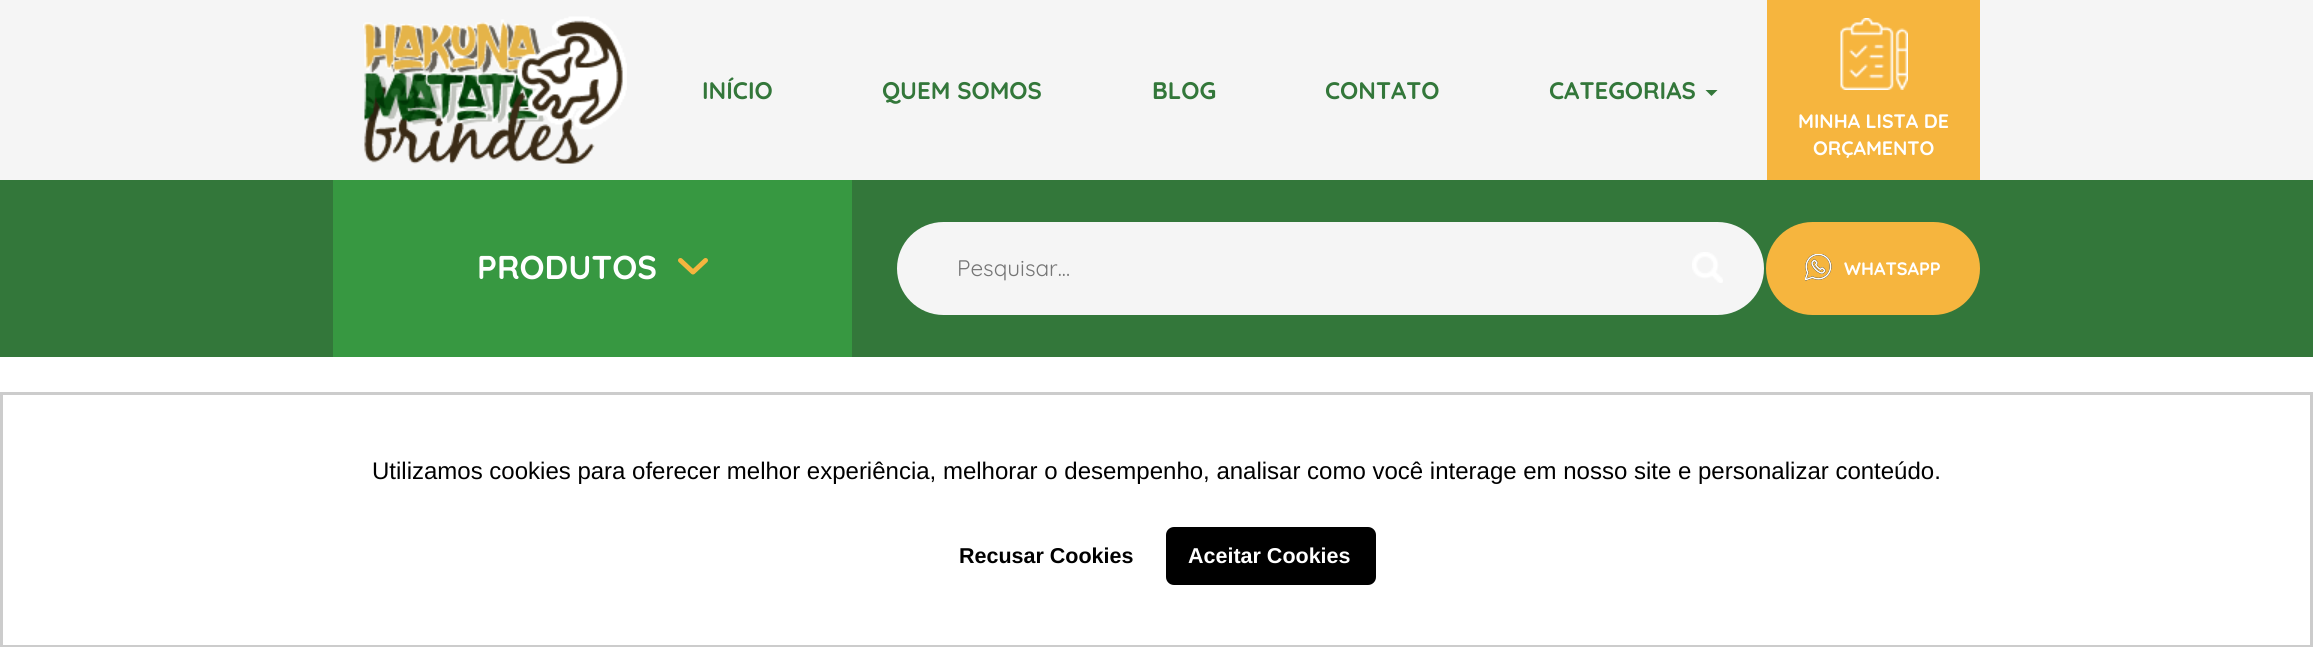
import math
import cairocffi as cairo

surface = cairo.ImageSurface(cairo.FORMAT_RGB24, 2313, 647)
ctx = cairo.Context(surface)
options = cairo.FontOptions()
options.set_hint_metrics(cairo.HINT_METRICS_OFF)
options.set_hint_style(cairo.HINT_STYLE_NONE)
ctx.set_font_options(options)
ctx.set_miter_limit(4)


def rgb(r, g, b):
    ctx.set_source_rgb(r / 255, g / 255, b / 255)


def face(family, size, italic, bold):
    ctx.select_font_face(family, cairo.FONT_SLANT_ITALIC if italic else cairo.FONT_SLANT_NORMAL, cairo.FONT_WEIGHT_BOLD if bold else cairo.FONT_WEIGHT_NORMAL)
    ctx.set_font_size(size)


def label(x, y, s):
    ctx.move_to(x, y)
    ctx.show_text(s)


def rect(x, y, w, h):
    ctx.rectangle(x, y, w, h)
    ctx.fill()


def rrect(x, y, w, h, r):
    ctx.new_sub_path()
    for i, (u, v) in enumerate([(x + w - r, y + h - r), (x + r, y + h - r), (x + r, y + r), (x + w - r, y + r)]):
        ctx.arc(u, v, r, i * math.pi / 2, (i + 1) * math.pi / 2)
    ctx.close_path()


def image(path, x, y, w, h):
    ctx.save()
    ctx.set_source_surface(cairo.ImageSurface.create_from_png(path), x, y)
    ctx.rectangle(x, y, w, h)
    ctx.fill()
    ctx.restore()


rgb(255, 255, 255)
ctx.paint()
rgb(245, 245, 245)
rect(0, 0, 2313, 180)
image('image0.png', 363, 16, 264, 148)
face('Quicksand', 24, 0, 1)
rgb(51, 119, 58)
label(702, 99, 'INÍCIO')
label(882, 99, 'QUEM SOMOS')
label(1152, 99, 'BLOG')
label(1325, 99, 'CONTATO')
label(1549, 99, 'CATEGORIAS')
ctx.new_path()
ctx.move_to(1705.5, 90)
ctx.line_to(1717.5, 90)
ctx.line_to(1711.5, 96)
ctx.close_path()
ctx.fill()
rgb(246, 181, 62)
rect(1767, 0, 213, 180)
image('image1.png', 1840, 18, 68, 72)
face('Quicksand', 19.5, 0, 1)
rgb(255, 255, 255)
label(1798, 128, 'MINHA LISTA DE')
label(1813, 155, 'ORÇAMENTO')
rgb(51, 119, 58)
rect(0, 180, 2313, 177)
rgb(55, 152, 65)
rect(333, 180, 519, 177)
face('Quicksand', 33, 0, 1)
rgb(255, 255, 255)
label(477, 279, 'PRODUTOS')
image('image2.png', 678, 258, 30, 17)
rgb(245, 245, 245)
rrect(897, 222, 867, 93, 46.5)
ctx.fill()
face('Quicksand', 22.5, 0, 0)
rgb(117, 117, 117)
label(957, 276, 'Pesquisar...')
image('image3.png', 1692, 252, 31, 31)
rgb(246, 181, 62)
rrect(1766, 222, 214, 93, 46.5)
ctx.fill()
image('image4.png', 1805, 254, 27, 27)
face('Quicksand', 18, 0, 1)
rgb(255, 255, 255)
label(1844, 275, 'WHATSAPP')
ctx.rectangle(1.5, 393.5, 2310, 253)
rgb(204, 204, 204)
ctx.set_line_width(3)
ctx.stroke()
face('Liberation Sans', 24, 0, 0)
rgb(0, 0, 0)
label(372, 479, 'Utilizamos cookies para oferecer melhor experiência, melhorar o desempenho, analisar como você interage em nosso site e personalizar conteúdo.')
face('Liberation Sans', 21.5, 0, 1)
label(959, 563, 'Recusar Cookies')
rrect(1166, 527, 210, 58, 8)
ctx.fill()
rgb(255, 255, 255)
label(1188, 563, 'Aceitar Cookies')
surface.write_to_png('render.png')
